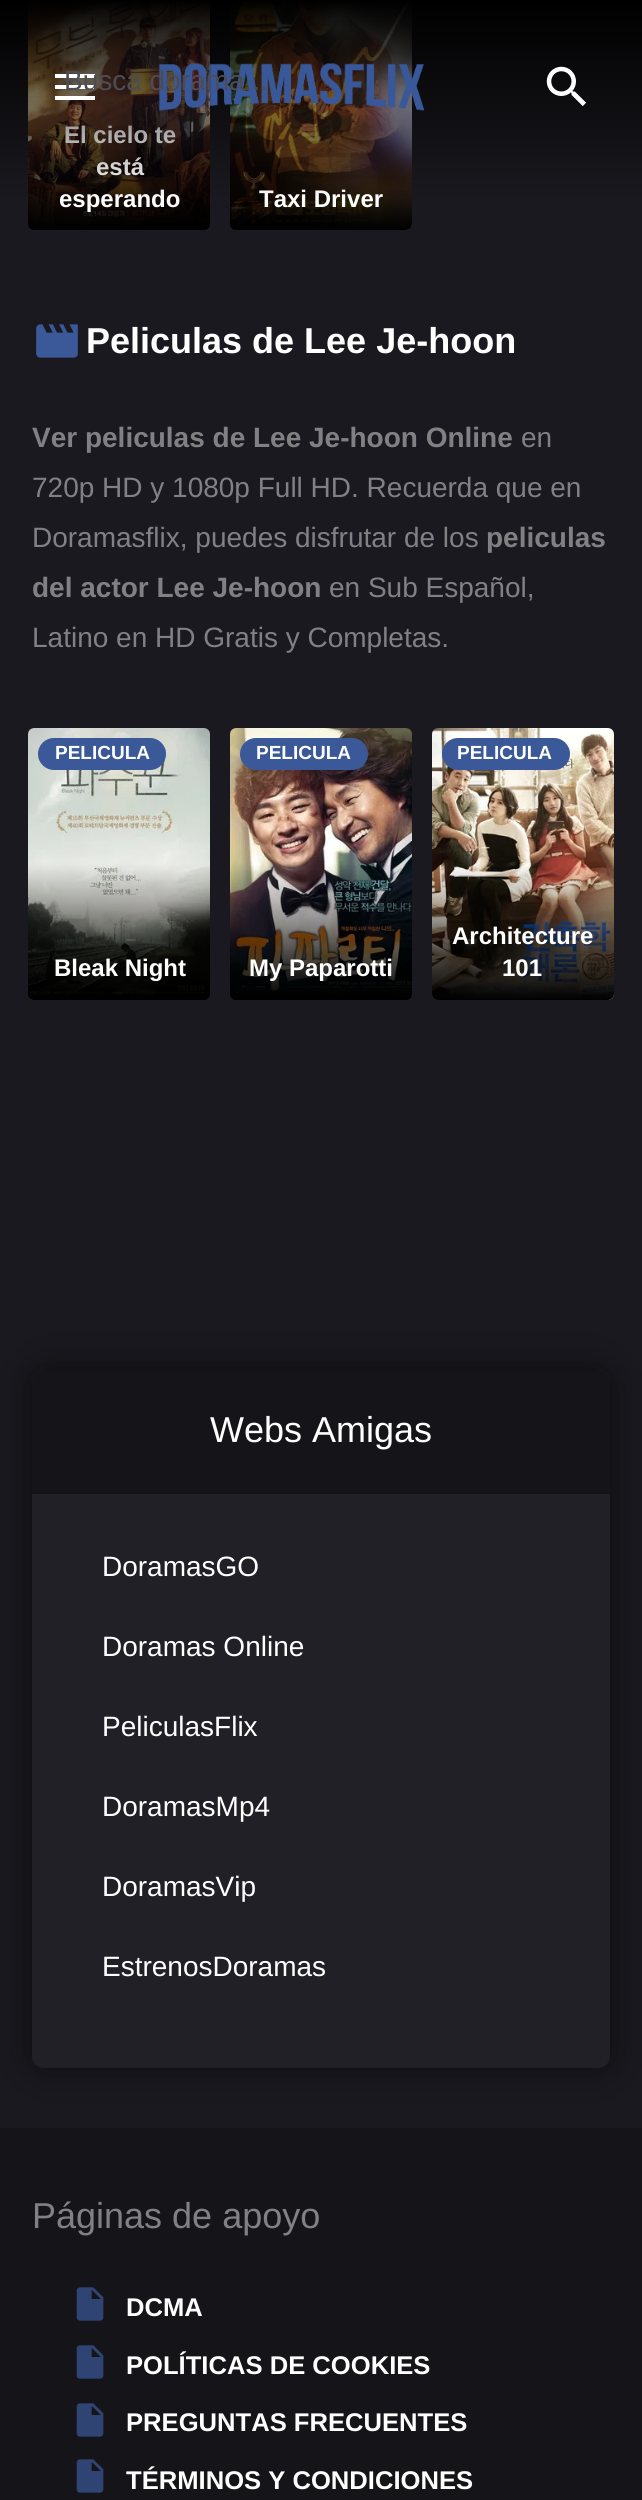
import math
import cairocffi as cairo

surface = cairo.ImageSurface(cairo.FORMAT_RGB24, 642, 2500)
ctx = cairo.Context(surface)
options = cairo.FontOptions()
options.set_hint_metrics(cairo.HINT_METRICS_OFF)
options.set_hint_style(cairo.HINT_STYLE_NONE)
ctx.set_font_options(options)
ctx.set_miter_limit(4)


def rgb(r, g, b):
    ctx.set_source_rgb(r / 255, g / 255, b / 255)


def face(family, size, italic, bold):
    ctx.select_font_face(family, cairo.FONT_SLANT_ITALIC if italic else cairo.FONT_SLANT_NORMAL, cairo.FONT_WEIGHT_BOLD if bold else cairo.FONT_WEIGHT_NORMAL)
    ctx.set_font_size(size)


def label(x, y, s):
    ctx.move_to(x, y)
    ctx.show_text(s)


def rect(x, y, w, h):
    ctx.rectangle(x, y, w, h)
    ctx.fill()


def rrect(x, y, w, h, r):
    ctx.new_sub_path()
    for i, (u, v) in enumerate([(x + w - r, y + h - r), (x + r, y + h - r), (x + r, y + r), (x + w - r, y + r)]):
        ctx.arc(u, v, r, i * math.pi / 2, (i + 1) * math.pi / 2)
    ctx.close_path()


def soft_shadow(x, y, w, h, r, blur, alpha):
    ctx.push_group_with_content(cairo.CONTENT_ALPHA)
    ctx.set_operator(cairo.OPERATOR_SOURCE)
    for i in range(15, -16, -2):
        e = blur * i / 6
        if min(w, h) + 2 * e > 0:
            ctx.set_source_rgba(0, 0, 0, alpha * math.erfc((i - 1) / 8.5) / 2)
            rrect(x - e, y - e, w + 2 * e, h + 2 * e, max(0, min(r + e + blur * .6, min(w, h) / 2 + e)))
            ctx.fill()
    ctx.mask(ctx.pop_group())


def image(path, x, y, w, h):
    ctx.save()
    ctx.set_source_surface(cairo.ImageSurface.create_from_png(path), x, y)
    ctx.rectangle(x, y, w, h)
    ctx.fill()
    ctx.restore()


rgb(26, 25, 31)
ctx.paint()
image('image2.png', 28, 1, 182, 229)
gradient = cairo.LinearGradient(119, -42, 119, 230)
gradient.add_color_stop_rgba(0.5, 0, 0, 0, 0)
gradient.add_color_stop_rgba(1, 0, 0, 0, 1)
ctx.set_source(gradient)
rrect(28, -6, 182, 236, 6)
ctx.fill()
face('Liberation Sans', 24, 0, 1)
rgb(255, 255, 255)
label(64, 143, 'El cielo te')
label(96, 175, 'está')
label(59, 207, 'esperando')
image('image3.png', 230, 1, 182, 229)
gradient = cairo.LinearGradient(321, -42, 321, 230)
gradient.add_color_stop_rgba(0.5, 0, 0, 0, 0)
gradient.add_color_stop_rgba(1, 0, 0, 0, 1)
ctx.set_source(gradient)
rrect(230, -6, 182, 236, 6)
ctx.fill()
rgb(255, 255, 255)
label(259, 207, 'Taxi Driver')
gradient = cairo.LinearGradient(321, 0, 321, 200)
gradient.add_color_stop_rgba(0, 0, 0, 0, 1)
gradient.add_color_stop_rgba(1, 0, 0, 0, 0)
ctx.set_source(gradient)
rect(0, 0, 642, 196)
image('image0.png', 159, 63, 266, 48)
rgb(255, 255, 255)
ctx.new_path()
ctx.move_to(55, 100)
ctx.line_to(95, 100)
ctx.line_to(95, 96)
ctx.line_to(55, 96)
ctx.close_path()
ctx.move_to(55, 89)
ctx.line_to(95, 89)
ctx.line_to(95, 85)
ctx.line_to(55, 85)
ctx.close_path()
ctx.move_to(55, 74)
ctx.line_to(55, 78)
ctx.line_to(95, 78)
ctx.line_to(95, 74)
ctx.close_path()
ctx.fill()
face('Liberation Sans', 28, 0, 0)
rgb(77, 76, 86)
label(64, 90, 'Busca dorama...')
image('image1.png', 546, 66, 40, 40)
image('image4.png', 36, 324, 42, 34)
face('Liberation Sans', 36, 0, 1)
rgb(255, 255, 255)
label(86, 353, 'Peliculas de Lee Je-hoon')
face('Liberation Sans', 28, 0, 1)
rgb(129, 128, 131)
label(32, 447, 'Ver peliculas de Lee Je-hoon Online')
face('Liberation Sans', 28, 0, 0)
label(521, 447, 'en')
label(32, 497, '720p HD y 1080p Full HD. Recuerda que en')
label(32, 547, 'Doramasflix, puedes disfrutar de los')
face('Liberation Sans', 28, 0, 1)
label(486, 547, 'peliculas')
label(32, 597, 'del actor Lee Je-hoon')
face('Liberation Sans', 28, 0, 0)
label(329, 597, 'en Sub Español,')
label(32, 647, 'Latino en HD Gratis y Completas.')
image('image5.png', 28, 728, 182, 272)
gradient = cairo.LinearGradient(119, 728, 119, 1000)
gradient.add_color_stop_rgba(0.5, 0, 0, 0, 0)
gradient.add_color_stop_rgba(1, 0, 0, 0, 1)
ctx.set_source(gradient)
rrect(28, 728, 182, 272, 6)
ctx.fill()
rgb(59, 89, 152)
rrect(38, 738, 128, 32, 16)
ctx.fill()
face('Liberation Sans', 19, 0, 1)
rgb(255, 255, 255)
label(55, 759, 'PELICULA')
face('Liberation Sans', 24, 0, 1)
label(54, 976, 'Bleak Night')
image('image6.png', 230, 728, 182, 272)
gradient = cairo.LinearGradient(321, 728, 321, 1000)
gradient.add_color_stop_rgba(0.5, 0, 0, 0, 0)
gradient.add_color_stop_rgba(1, 0, 0, 0, 1)
ctx.set_source(gradient)
rrect(230, 728, 182, 272, 6)
ctx.fill()
rgb(59, 89, 152)
rrect(240, 738, 128, 32, 16)
ctx.fill()
face('Liberation Sans', 19, 0, 1)
rgb(255, 255, 255)
label(256, 759, 'PELICULA')
face('Liberation Sans', 24, 0, 1)
label(249, 976, 'My Paparotti')
image('image7.png', 432, 728, 182, 272)
gradient = cairo.LinearGradient(523, 728, 523, 1000)
gradient.add_color_stop_rgba(0.5, 0, 0, 0, 0)
gradient.add_color_stop_rgba(1, 0, 0, 0, 1)
ctx.set_source(gradient)
rrect(432, 728, 182, 272, 6)
ctx.fill()
rgb(59, 89, 152)
rrect(442, 738, 128, 32, 16)
ctx.fill()
face('Liberation Sans', 19, 0, 1)
rgb(255, 255, 255)
label(457, 759, 'PELICULA')
face('Liberation Sans', 24, 0, 1)
label(452, 944, 'Architecture')
label(502, 976, '101')
rgb(0, 0, 0)
soft_shadow(32, 1370, 578, 698, 12, 20, 0.5)
rgb(33, 32, 38)
rrect(32, 1370, 578, 698, 12)
ctx.fill()
rgb(21, 20, 25)
ctx.new_path()
ctx.move_to(44, 1370)
ctx.line_to(598, 1370)
ctx.curve_to(604.5, 1370, 610, 1375.5, 610, 1382)
ctx.line_to(610, 1494)
ctx.line_to(32, 1494)
ctx.line_to(32, 1382)
ctx.curve_to(32, 1375.5, 37.5, 1370, 44, 1370)
ctx.close_path()
ctx.fill()
face('Liberation Sans', 36, 0, 0)
rgb(255, 255, 255)
label(210, 1442, 'Webs Amigas')
face('Liberation Sans', 28, 0, 0)
label(102, 1576, 'DoramasGO')
label(102, 1656, 'Doramas Online')
label(102, 1736, 'PeliculasFlix')
label(102, 1816, 'DoramasMp4')
label(102, 1896, 'DoramasVip')
label(102, 1976, 'EstrenosDoramas')
rgb(21, 20, 25)
rect(0, 2128, 642, 372)
face('Liberation Sans', 36, 0, 0)
rgb(129, 128, 131)
label(32, 2228, 'Páginas de apoyo')
image('image8.png', 76, 2287, 28, 34)
face('Liberation Sans', 25.6, 0, 1)
rgb(255, 255, 255)
label(126, 2316, 'DCMA')
image('image8.png', 76, 2345, 28, 34)
label(126, 2374, 'POLÍTICAS DE COOKIES')
image('image8.png', 76, 2403, 28, 34)
label(126, 2431, 'PREGUNTAS FRECUENTES')
image('image8.png', 76, 2459, 28, 34)
label(126, 2489, 'TÉRMINOS Y CONDICIONES')
surface.write_to_png('render.png')
